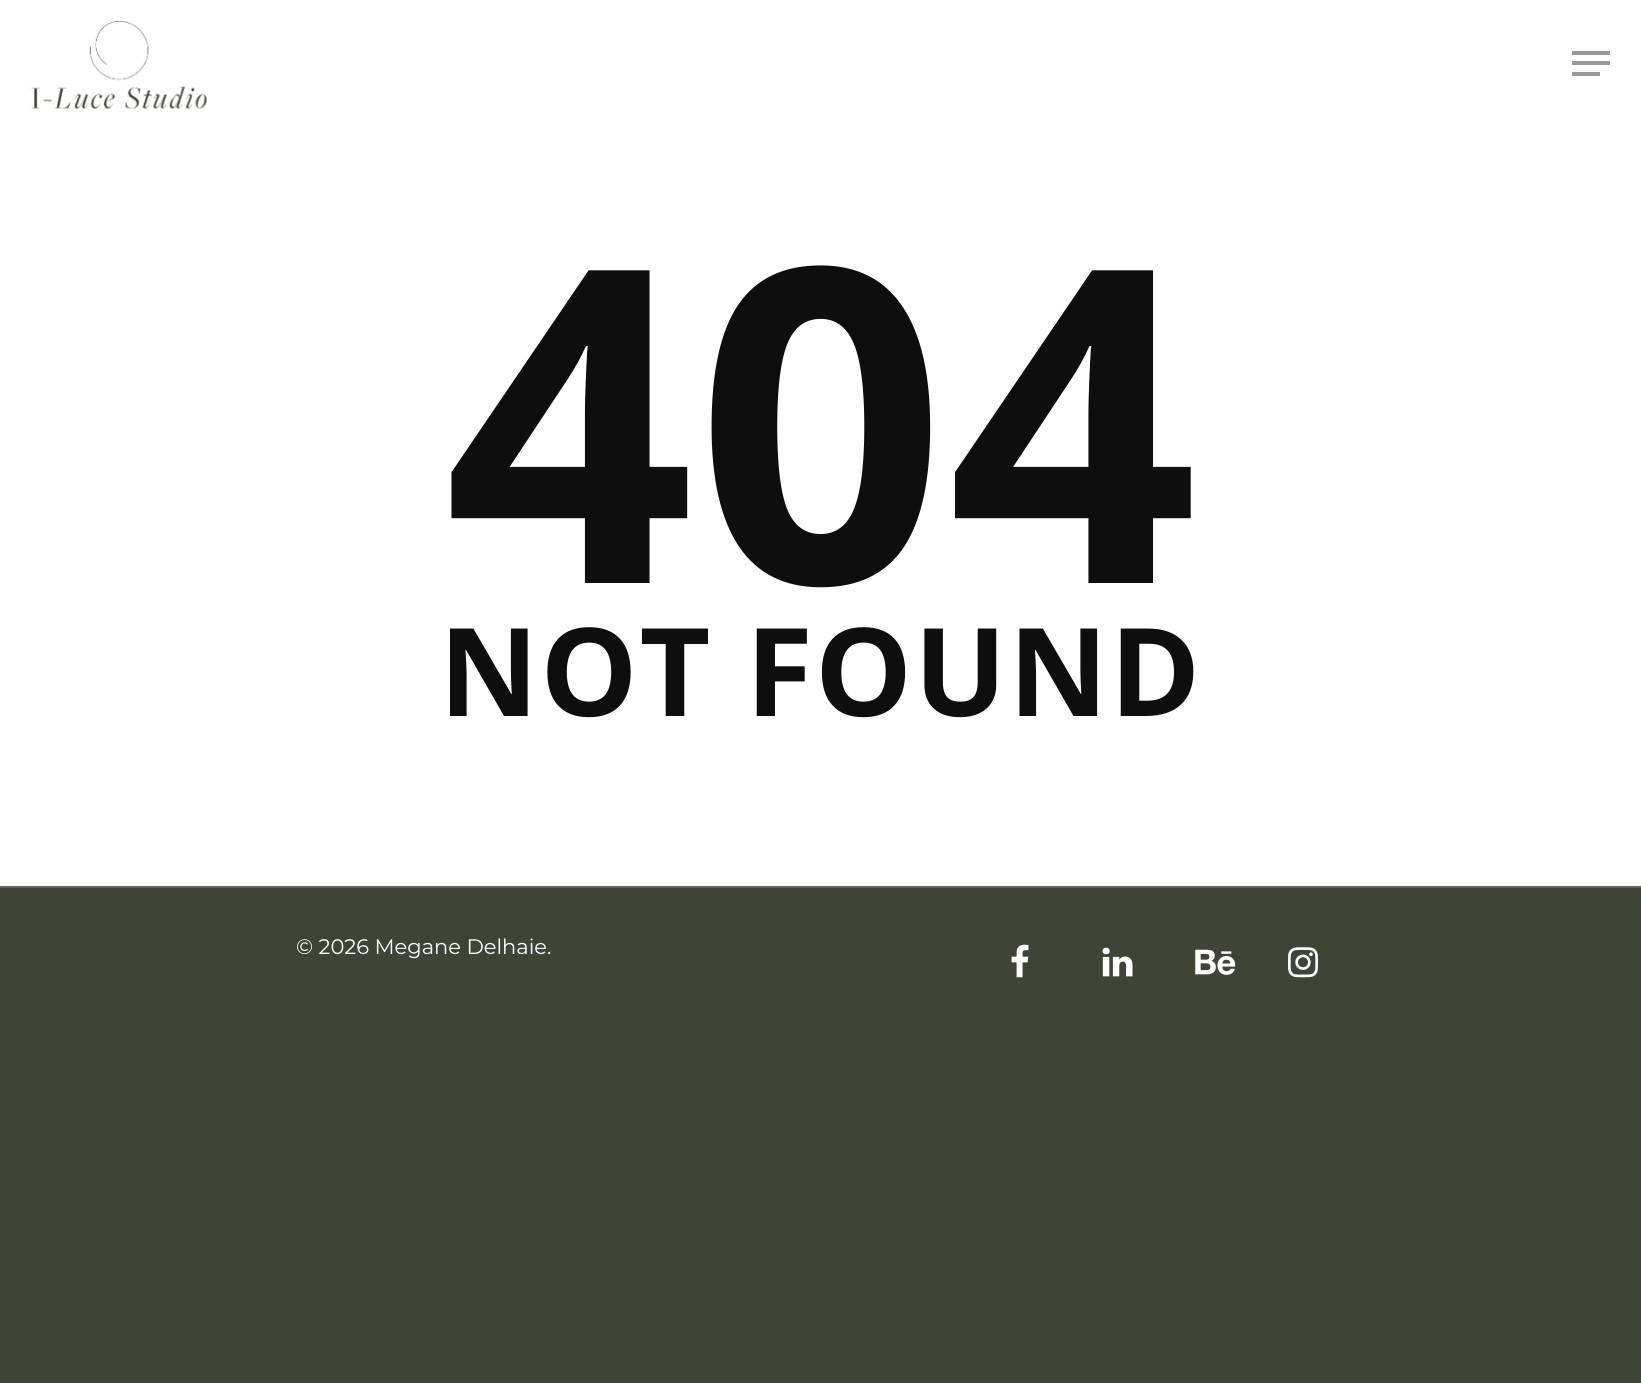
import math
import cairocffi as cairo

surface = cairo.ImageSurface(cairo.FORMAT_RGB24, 1641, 1383)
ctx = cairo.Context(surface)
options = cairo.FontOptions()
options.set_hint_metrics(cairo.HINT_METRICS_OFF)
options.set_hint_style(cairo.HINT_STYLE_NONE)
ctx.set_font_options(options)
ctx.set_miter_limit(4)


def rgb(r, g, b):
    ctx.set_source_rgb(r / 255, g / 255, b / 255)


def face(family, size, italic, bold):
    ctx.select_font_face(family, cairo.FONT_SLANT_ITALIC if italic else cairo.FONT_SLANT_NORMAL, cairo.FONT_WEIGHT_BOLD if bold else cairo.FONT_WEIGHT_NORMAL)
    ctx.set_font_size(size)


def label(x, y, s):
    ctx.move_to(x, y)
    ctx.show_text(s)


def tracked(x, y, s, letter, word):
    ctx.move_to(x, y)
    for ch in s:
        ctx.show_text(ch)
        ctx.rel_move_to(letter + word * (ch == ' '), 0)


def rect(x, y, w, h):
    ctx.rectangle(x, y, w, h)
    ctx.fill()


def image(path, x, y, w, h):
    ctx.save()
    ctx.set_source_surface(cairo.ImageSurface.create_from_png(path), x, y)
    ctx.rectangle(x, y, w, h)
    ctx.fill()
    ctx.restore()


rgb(64, 68, 53)
ctx.paint()
rgb(255, 255, 255)
rect(0, 0, 1641, 886)
image('image0.png', 31, 21, 176, 88)
rgb(153, 153, 153)
rect(1572, 51, 38, 4)
rect(1572, 72, 28, 4)
rect(1572, 61, 38, 4)
face('Open Sans', 438, 0, 1)
rgb(14, 14, 14)
tracked(444, 583, '404', 1.75, 0)
face('Open Sans', 122.5, 0, 1)
tracked(439, 716, 'NOT FOUND', 1.75, 0)
rgb(98, 102, 89)
rect(0, 886, 1641, 2)
face('Montserrat Thin', 21, 0, 0)
rgb(255, 255, 255)
label(296, 954, '© 2026 Megane Delhaie.')
image('image1.png', 1011, 944, 18, 34)
image('image2.png', 1102, 947, 31, 30)
image('image3.png', 1195, 949, 41, 26)
image('image4.png', 1288, 947, 30, 31)
surface.write_to_png('render.png')
